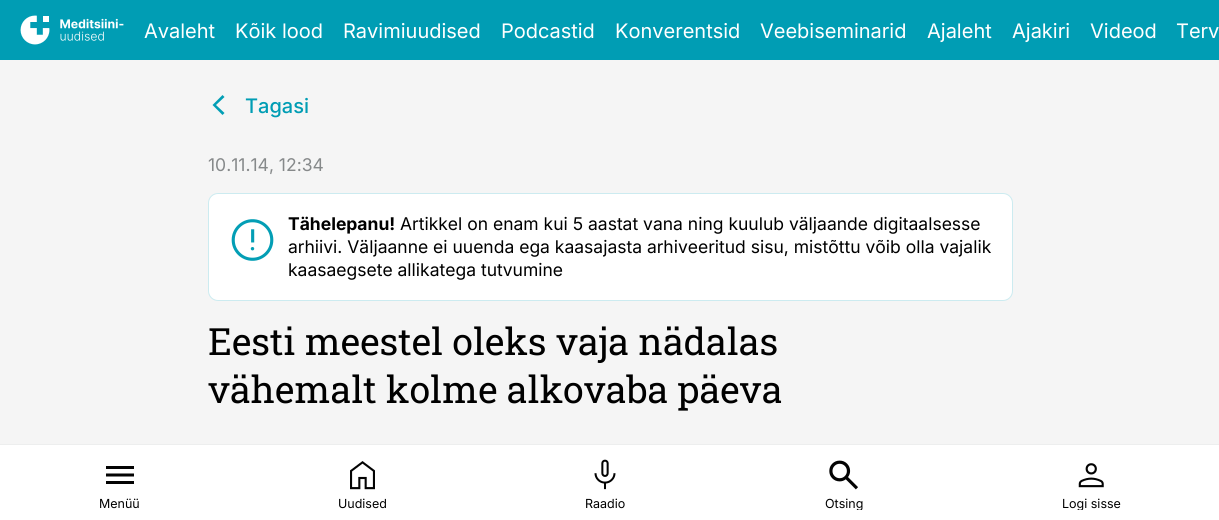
import math
import cairocffi as cairo

surface = cairo.ImageSurface(cairo.FORMAT_RGB24, 1219, 520)
ctx = cairo.Context(surface)
options = cairo.FontOptions()
options.set_hint_metrics(cairo.HINT_METRICS_OFF)
options.set_hint_style(cairo.HINT_STYLE_NONE)
ctx.set_font_options(options)
ctx.set_miter_limit(4)


def rgb(r, g, b):
    ctx.set_source_rgb(r / 255, g / 255, b / 255)


def face(family, size, italic, bold):
    ctx.select_font_face(family, cairo.FONT_SLANT_ITALIC if italic else cairo.FONT_SLANT_NORMAL, cairo.FONT_WEIGHT_BOLD if bold else cairo.FONT_WEIGHT_NORMAL)
    ctx.set_font_size(size)


def label(x, y, s):
    ctx.move_to(x, y)
    ctx.show_text(s)


def rect(x, y, w, h):
    ctx.rectangle(x, y, w, h)
    ctx.fill()


def rrect(x, y, w, h, r):
    ctx.new_sub_path()
    for i, (u, v) in enumerate([(x + w - r, y + h - r), (x + r, y + h - r), (x + r, y + r), (x + w - r, y + r)]):
        ctx.arc(u, v, r, i * math.pi / 2, (i + 1) * math.pi / 2)
    ctx.close_path()


def image(path, x, y, w, h):
    ctx.save()
    ctx.set_source_surface(cairo.ImageSurface.create_from_png(path), x, y)
    ctx.rectangle(x, y, w, h)
    ctx.fill()
    ctx.restore()


rgb(245, 245, 245)
ctx.paint()
rgb(0, 157, 180)
rect(0, 0, 1219, 60)
image('image0.png', 20, 15, 104, 30)
face('Inter', 20, 0, 0)
rgb(255, 255, 255)
label(144, 38, 'Avaleht')
label(235, 38, 'Kõik lood')
label(343, 38, 'Ravimiuudised')
label(501, 38, 'Podcastid')
label(615, 38, 'Konverentsid')
label(760, 38, 'Veebiseminarid')
label(927, 38, 'Ajaleht')
label(1012, 38, 'Ajakiri')
label(1090, 38, 'Videod')
label(1176, 38, 'Terv')
rgb(2, 158, 181)
ctx.new_path()
ctx.move_to(222.5, 115)
ctx.line_to(212.5, 105)
ctx.line_to(222.5, 95)
ctx.line_to(224.5, 97)
ctx.line_to(216, 105)
ctx.line_to(224.5, 113)
ctx.close_path()
ctx.fill()
face('Inter Medium', 20, 0, 0)
rgb(0, 157, 180)
label(245, 113, 'Tagasi')
face('Inter', 17.5, 0, 0)
rgb(134, 137, 138)
label(208, 171, '10.11.14, 12:34')
rgb(255, 255, 255)
rrect(208.5, 193.5, 804, 107, 9.5)
ctx.fill_preserve()
rgb(204, 235, 240)
ctx.set_line_width(1)
ctx.stroke()
image('image1.png', 231, 219, 43, 42)
face('Inter', 17.5, 0, 1)
rgb(0, 0, 0)
label(288, 230, 'Tähelepanu!')
face('Inter', 17.5, 0, 0)
label(400, 230, 'Artikkel on enam kui 5 aastat vana ning kuulub väljaande digitaalsesse')
label(288, 253, 'arhiivi. Väljaanne ei uuenda ega kaasajasta arhiveeritud sisu, mistõttu võib olla vajalik')
label(288, 276, 'kaasaegsete allikatega tutvumine')
face('Roboto Slab', 37.5, 0, 0)
label(208, 355, 'Eesti meestel oleks vaja nädalas')
label(208, 403, 'vähemalt kolme alkovaba päeva')
rgb(255, 255, 255)
rect(0, 445, 1219, 75)
rgb(237, 238, 238)
rect(0, 444, 1219, 1)
image('image2.png', 106, 466, 28, 18)
face('Inter', 12.5, 0, 0)
rgb(0, 0, 0)
label(99, 508, 'Menüü')
image('image3.png', 350, 461, 25, 29)
label(338, 508, 'Uudised')
image('image4.png', 594, 459, 22, 31)
label(585, 508, 'Raadio')
image('image5.png', 829, 460, 29, 30)
ctx.save()
ctx.rectangle(825, 495, 38, 15)
ctx.clip()
label(825, 508, 'Otsing')
ctx.restore()
image('image6.png', 1078, 463, 26, 25)
ctx.save()
ctx.rectangle(1063, 495, 58, 15)
ctx.clip()
label(1062, 508, 'Logi sisse')
ctx.restore()
surface.write_to_png('render.png')
